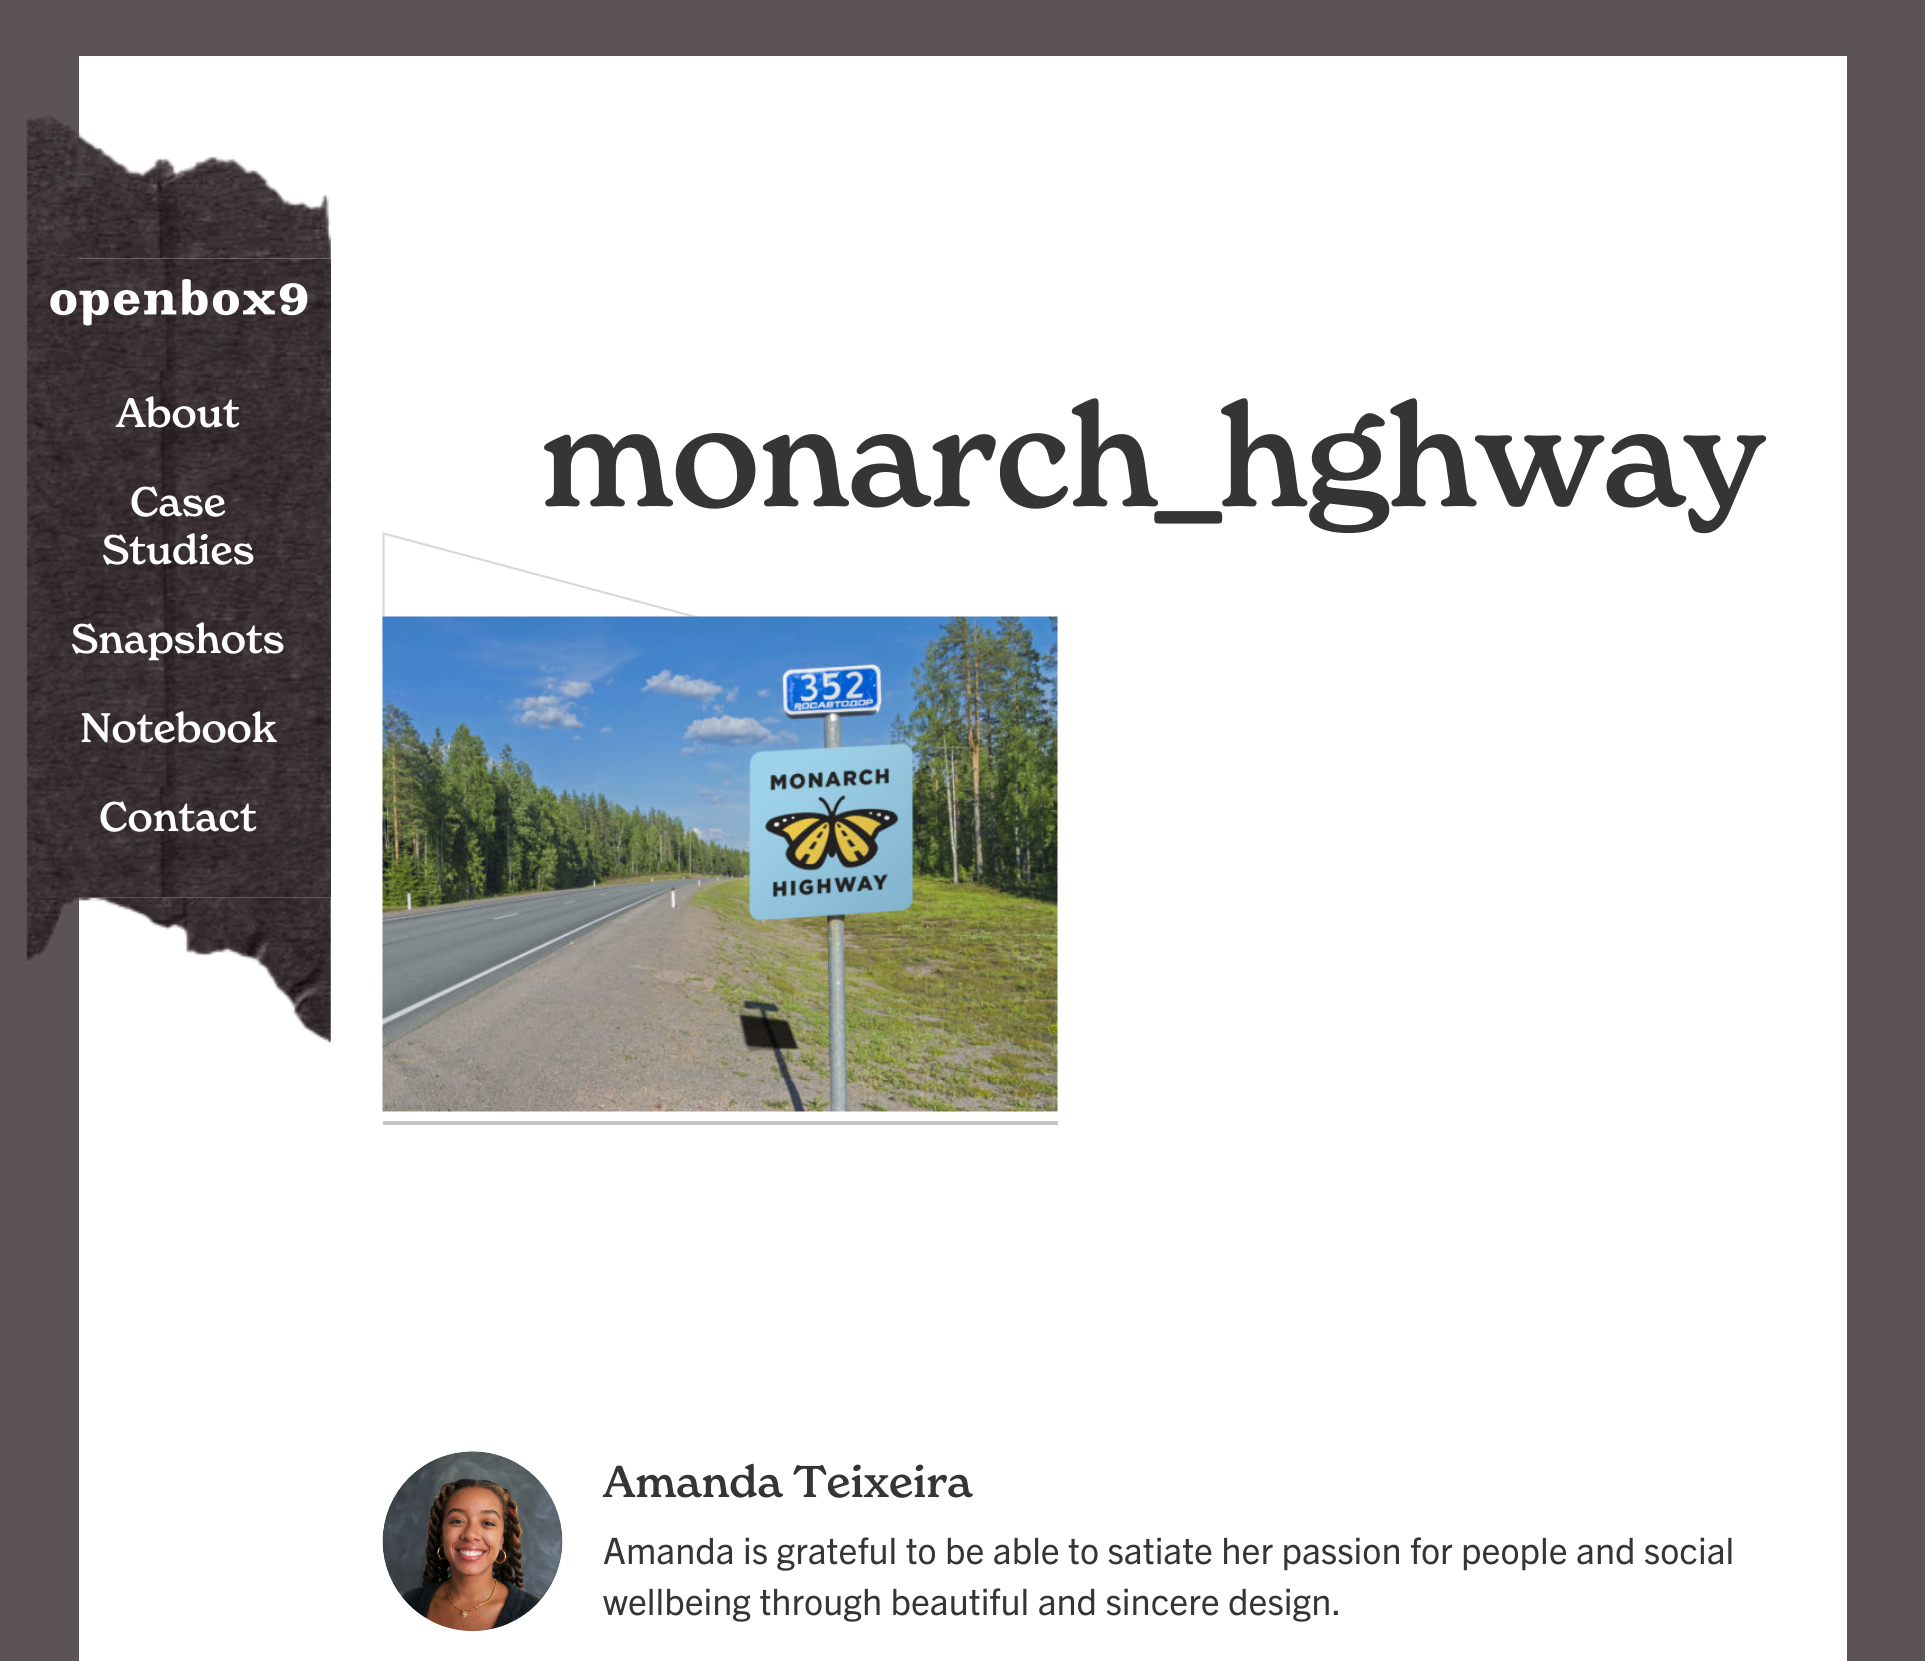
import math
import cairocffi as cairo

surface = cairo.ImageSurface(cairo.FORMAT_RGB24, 1925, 1661)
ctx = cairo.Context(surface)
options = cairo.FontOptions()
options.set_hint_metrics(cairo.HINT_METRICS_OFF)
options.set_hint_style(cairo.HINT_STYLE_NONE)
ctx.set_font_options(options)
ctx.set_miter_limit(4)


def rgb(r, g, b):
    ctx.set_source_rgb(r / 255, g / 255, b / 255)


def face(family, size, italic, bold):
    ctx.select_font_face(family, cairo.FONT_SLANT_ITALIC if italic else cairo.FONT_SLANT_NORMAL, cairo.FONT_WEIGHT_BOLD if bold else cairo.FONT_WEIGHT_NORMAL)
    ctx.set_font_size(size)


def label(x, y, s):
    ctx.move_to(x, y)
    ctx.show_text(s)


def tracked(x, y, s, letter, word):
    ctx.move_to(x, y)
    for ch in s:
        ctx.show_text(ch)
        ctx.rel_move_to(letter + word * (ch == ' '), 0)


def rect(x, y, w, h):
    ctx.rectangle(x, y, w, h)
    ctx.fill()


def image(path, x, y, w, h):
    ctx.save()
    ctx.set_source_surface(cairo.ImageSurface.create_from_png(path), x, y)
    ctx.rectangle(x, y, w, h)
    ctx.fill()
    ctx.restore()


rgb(92, 83, 86)
ctx.paint()
rgb(255, 255, 255)
rect(79, 56, 1768, 1605)
image('image0.png', 26, 115, 305, 144)
image('image2.png', 26, 259, 305, 639)
image('image1.png', 50, 279, 258, 47)
face('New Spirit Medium', 40.5, 0, 0)
label(116, 427, 'About')
label(130, 516, 'Case')
label(102, 564, 'Studies')
label(71, 653, 'Snapshots')
label(80, 742, 'Notebook')
label(99, 831, 'Contact')
image('image3.png', 26, 897, 305, 147)
face('New Spirit Medium', 141.75, 0, 0)
rgb(54, 53, 53)
tracked(540, 506, 'monarch_hghway', -1.1, 0)
ctx.new_path()
ctx.move_to(383.5, 533.5)
ctx.line_to(791, 642.5)
ctx.line_to(791, 766)
ctx.line_to(383.5, 657)
ctx.close_path()
rgb(217, 217, 217)
ctx.set_line_width(2.2)
ctx.stroke()
image('image4.png', 382, 616, 676, 496)
rgb(198, 198, 198)
rect(383, 1121, 675, 4)
image('image5.png', 382, 1451, 181, 181)
face('New Spirit Medium', 43.75, 0, 0)
rgb(54, 53, 53)
label(603, 1497, 'Amanda Teixeira')
face('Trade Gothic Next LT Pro', 36.45, 0, 0)
label(603, 1564, 'Amanda is grateful to be able to satiate her passion for people and social')
label(603, 1615, 'wellbeing through beautiful and sincere design.')
surface.write_to_png('render.png')
